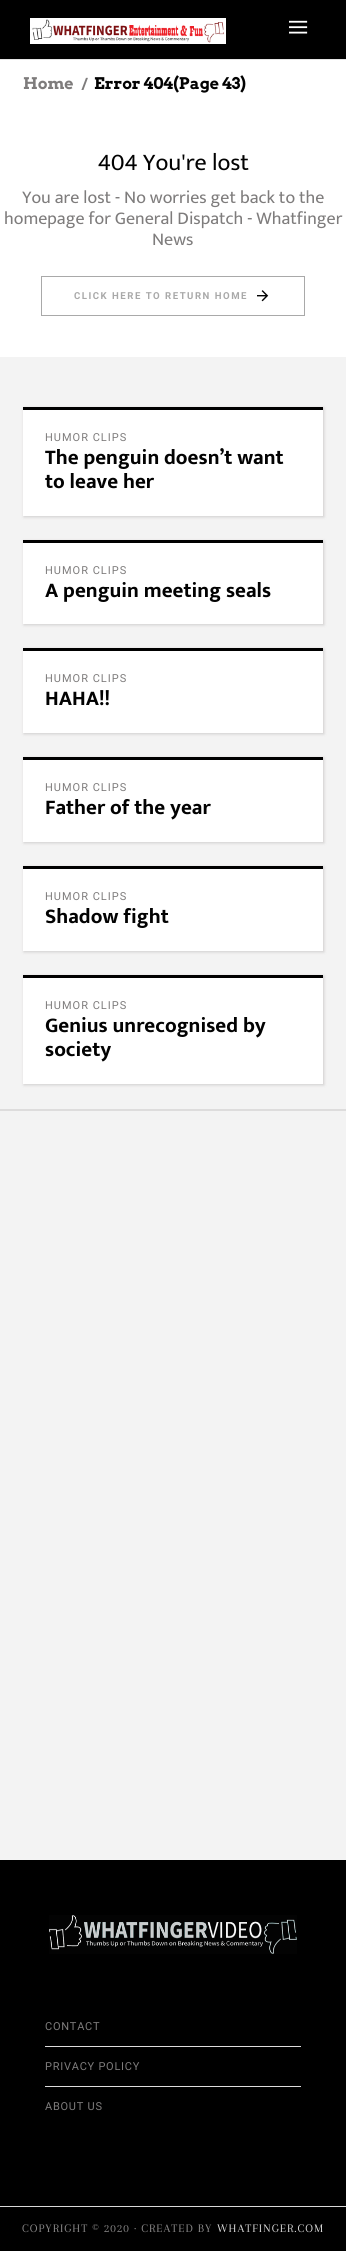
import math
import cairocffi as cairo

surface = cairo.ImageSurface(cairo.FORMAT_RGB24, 346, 2251)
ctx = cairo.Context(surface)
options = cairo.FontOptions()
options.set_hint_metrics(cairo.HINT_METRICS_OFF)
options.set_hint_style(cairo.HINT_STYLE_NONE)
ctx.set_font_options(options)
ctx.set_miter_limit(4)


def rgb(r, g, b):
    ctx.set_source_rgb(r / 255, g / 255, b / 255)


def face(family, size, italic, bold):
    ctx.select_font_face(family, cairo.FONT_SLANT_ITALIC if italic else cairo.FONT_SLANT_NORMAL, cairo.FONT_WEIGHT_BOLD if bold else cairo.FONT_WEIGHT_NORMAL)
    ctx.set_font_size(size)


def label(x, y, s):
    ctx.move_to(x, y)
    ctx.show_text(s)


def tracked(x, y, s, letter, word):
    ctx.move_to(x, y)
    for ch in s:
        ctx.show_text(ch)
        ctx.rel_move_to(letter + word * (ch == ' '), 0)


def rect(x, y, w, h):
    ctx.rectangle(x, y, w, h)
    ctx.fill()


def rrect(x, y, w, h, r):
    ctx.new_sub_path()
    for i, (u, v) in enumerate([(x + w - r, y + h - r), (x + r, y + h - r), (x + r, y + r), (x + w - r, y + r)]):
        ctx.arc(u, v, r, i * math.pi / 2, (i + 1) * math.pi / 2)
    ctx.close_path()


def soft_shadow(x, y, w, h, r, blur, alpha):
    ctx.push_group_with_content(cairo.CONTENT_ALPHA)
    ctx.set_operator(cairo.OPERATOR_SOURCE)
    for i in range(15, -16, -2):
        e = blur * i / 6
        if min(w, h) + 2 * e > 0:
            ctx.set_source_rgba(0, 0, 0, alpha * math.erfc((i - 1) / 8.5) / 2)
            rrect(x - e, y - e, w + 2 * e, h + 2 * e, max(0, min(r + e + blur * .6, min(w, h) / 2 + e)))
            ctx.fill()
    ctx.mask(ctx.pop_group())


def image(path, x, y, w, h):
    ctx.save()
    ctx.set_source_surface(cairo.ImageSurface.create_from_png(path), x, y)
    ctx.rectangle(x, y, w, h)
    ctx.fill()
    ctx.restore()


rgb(243, 243, 243)
ctx.paint()
rgb(221, 220, 220)
rect(0, 1109, 346, 2)
rgb(0, 0, 0)
rect(0, 0, 346, 59)
rgb(228, 228, 228)
rect(0, 59, 346, 1)
image('image0.png', 30, 18, 196, 26)
image('image1.png', 289, 20, 19, 14)
rgb(255, 255, 255)
rect(0, 60, 346, 297)
face('Arvo', 16, 0, 1)
rgb(126, 124, 124)
label(23, 89, 'Home')
label(81, 90, '/')
rgb(2, 2, 2)
label(94, 89, 'Error 404(Page 43)')
face('Ek Mukta', 24, 0, 0)
label(98, 170, '404 You\'re lost')
face('Ek Mukta', 18, 0, 0)
rgb(126, 124, 124)
label(22, 203, 'You are lost - No worries get back to the')
label(4, 224, 'homepage for General Dispatch - Whatfinger')
label(152, 245, 'News')
ctx.rectangle(41.5, 276.5, 263, 39)
rgb(169, 169, 169)
ctx.set_line_width(1)
ctx.stroke()
face('Roboto', 9.6, 0, 1)
tracked(74, 299, 'CLICK HERE TO RETURN HOME', 1.5, 0)
image('image2.png', 257, 290, 12, 12)
rgb(206, 204, 204)
soft_shadow(24, 408, 300, 109, 0, 1.5, 1)
rgb(255, 255, 255)
rect(23, 410, 300, 106)
rgb(0, 0, 0)
rect(23, 407, 300, 3)
face('Roboto', 11, 0, 0)
rgb(126, 124, 124)
tracked(45, 441, 'HUMOR CLIPS', 1, 0)
face('Ek Mukta', 21, 0, 1)
rgb(2, 2, 2)
label(45, 464, 'The penguin doesn’t want')
label(45, 488, 'to leave her')
rgb(206, 204, 204)
soft_shadow(24, 541, 300, 84, 0, 1.5, 1)
rgb(255, 255, 255)
rect(23, 543, 300, 81)
rgb(0, 0, 0)
rect(23, 540, 300, 3)
face('Roboto', 11, 0, 0)
rgb(126, 124, 124)
tracked(45, 574, 'HUMOR CLIPS', 1, 0)
face('Ek Mukta', 21, 0, 1)
rgb(2, 2, 2)
label(45, 597, 'A penguin meeting seals')
rgb(206, 204, 204)
soft_shadow(24, 649, 300, 85, 0, 1.5, 1)
rgb(255, 255, 255)
rect(23, 651, 300, 82)
rgb(0, 0, 0)
rect(23, 648, 300, 3)
face('Roboto', 11, 0, 0)
rgb(126, 124, 124)
tracked(45, 682, 'HUMOR CLIPS', 1, 0)
face('Ek Mukta', 21, 0, 1)
rgb(2, 2, 2)
label(45, 705, 'HAHA!!')
rgb(206, 204, 204)
soft_shadow(24, 758, 300, 85, 0, 1.5, 1)
rgb(255, 255, 255)
rect(23, 760, 300, 82)
rgb(0, 0, 0)
rect(23, 757, 300, 3)
face('Roboto', 11, 0, 0)
rgb(126, 124, 124)
tracked(45, 791, 'HUMOR CLIPS', 1, 0)
face('Ek Mukta', 21, 0, 1)
rgb(2, 2, 2)
label(45, 814, 'Father of the year')
rgb(206, 204, 204)
soft_shadow(24, 867, 300, 85, 0, 1.5, 1)
rgb(255, 255, 255)
rect(23, 869, 300, 82)
rgb(0, 0, 0)
rect(23, 866, 300, 3)
face('Roboto', 11, 0, 0)
rgb(126, 124, 124)
tracked(45, 900, 'HUMOR CLIPS', 1, 0)
face('Ek Mukta', 21, 0, 1)
rgb(2, 2, 2)
label(45, 923, 'Shadow fight')
rgb(206, 204, 204)
soft_shadow(24, 976, 300, 109, 0, 1.5, 1)
rgb(255, 255, 255)
rect(23, 978, 300, 106)
rgb(0, 0, 0)
rect(23, 975, 300, 3)
face('Roboto', 11, 0, 0)
rgb(126, 124, 124)
tracked(45, 1009, 'HUMOR CLIPS', 1, 0)
face('Ek Mukta', 21, 0, 1)
rgb(2, 2, 2)
label(45, 1032, 'Genius unrecognised by')
label(45, 1056, 'society')
rgb(0, 0, 0)
rect(0, 1860, 346, 346)
image('image3.png', 49, 1915, 248, 39)
rgb(221, 220, 220)
rect(45, 2046, 256, 1)
face('Roboto', 11, 0, 0)
rgb(126, 124, 124)
tracked(45, 2030, 'CONTACT', 0.75, 0)
rgb(221, 220, 220)
rect(45, 2086, 256, 1)
rgb(126, 124, 124)
tracked(45, 2070, 'PRIVACY POLICY', 0.75, 0)
tracked(45, 2110, 'ABOUT US', 0.75, 0)
rgb(0, 0, 0)
rect(0, 2207, 346, 44)
rgb(217, 217, 217)
rect(0, 2206, 346, 1)
face('Arapey', 12, 0, 0)
rgb(139, 138, 138)
tracked(22, 2232, 'COPYRIGHT © 2020 · CREATED BY', 1, 0)
rgb(217, 217, 217)
tracked(217, 2232, 'WHATFINGER.COM', 1, 0)
surface.write_to_png('render.png')
